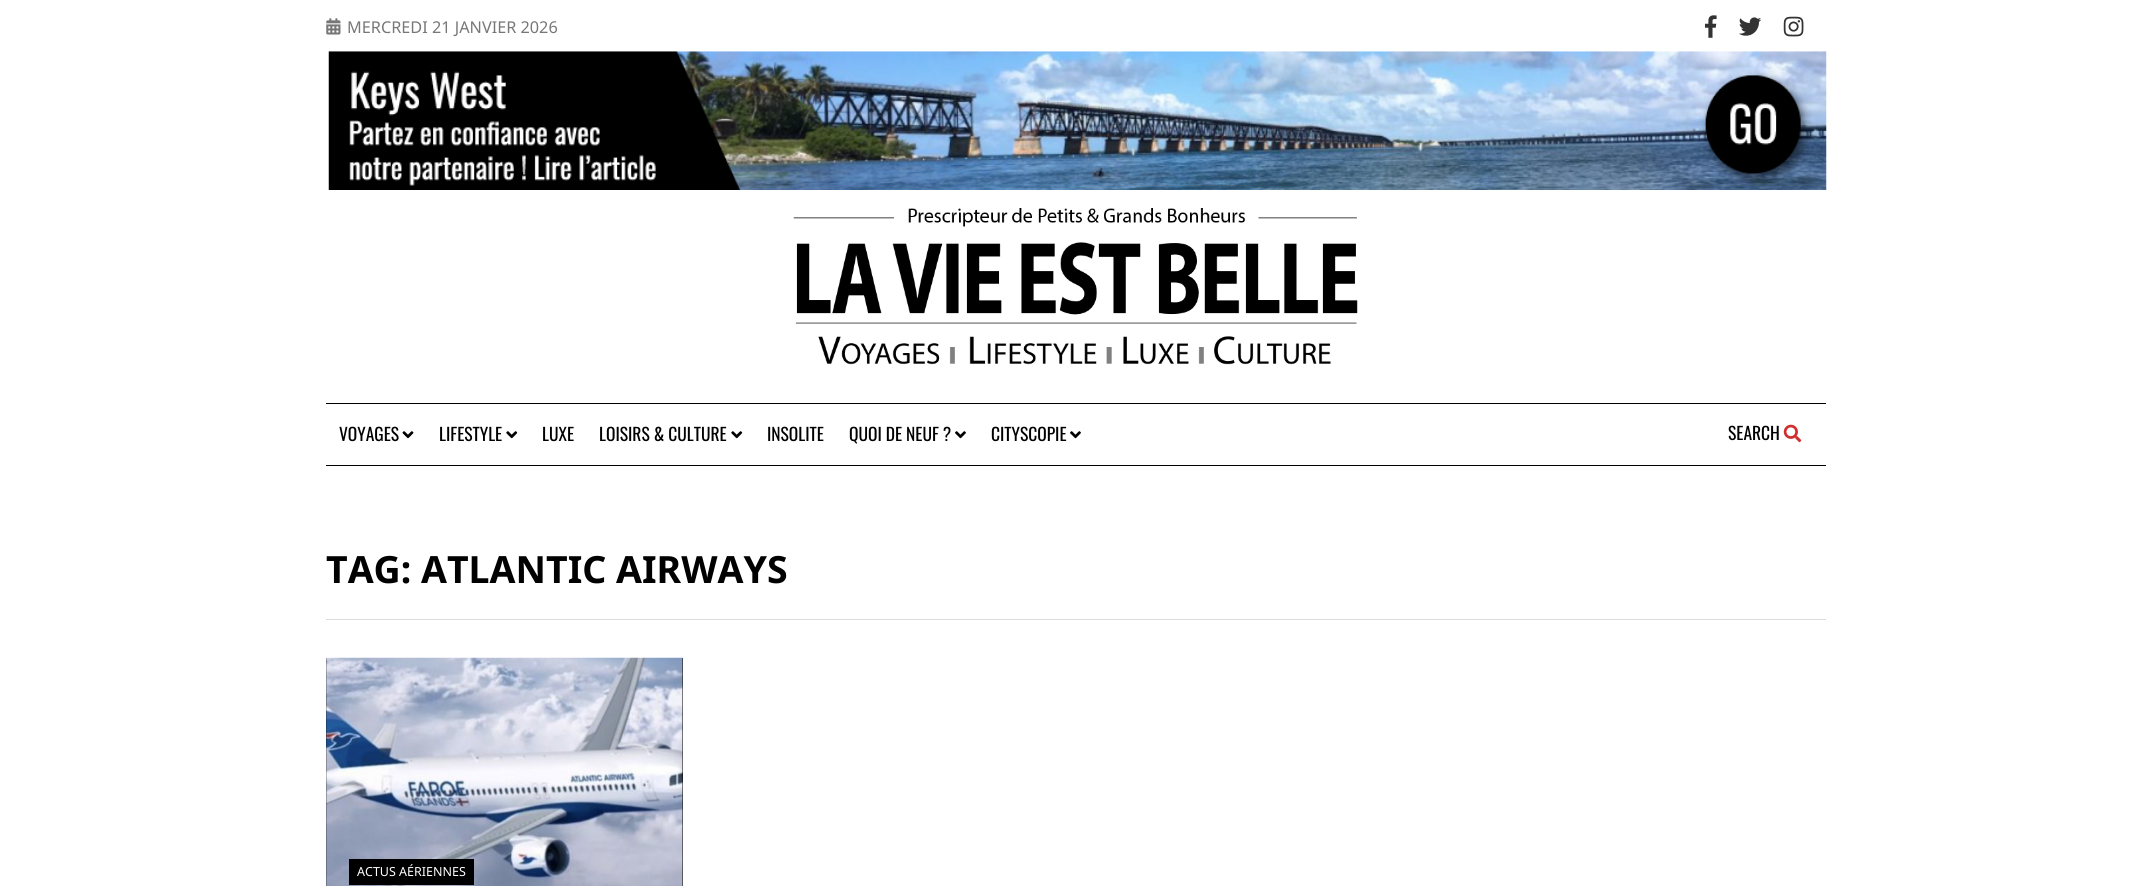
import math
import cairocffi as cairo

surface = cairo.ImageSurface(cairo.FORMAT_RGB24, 2152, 886)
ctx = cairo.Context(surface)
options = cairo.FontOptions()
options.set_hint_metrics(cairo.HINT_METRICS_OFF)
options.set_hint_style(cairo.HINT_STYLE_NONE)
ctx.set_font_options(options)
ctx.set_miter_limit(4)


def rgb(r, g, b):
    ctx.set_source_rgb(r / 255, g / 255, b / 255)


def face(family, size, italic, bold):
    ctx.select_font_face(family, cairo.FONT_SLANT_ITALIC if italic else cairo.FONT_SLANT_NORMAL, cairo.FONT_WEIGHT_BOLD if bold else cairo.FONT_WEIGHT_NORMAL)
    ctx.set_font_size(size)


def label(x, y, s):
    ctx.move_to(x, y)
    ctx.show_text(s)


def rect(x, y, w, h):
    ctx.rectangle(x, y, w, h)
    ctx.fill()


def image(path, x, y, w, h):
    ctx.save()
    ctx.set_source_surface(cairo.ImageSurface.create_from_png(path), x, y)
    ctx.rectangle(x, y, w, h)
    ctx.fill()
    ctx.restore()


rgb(255, 255, 255)
ctx.paint()
image('image0.png', 326, 18, 15, 17)
face('Noto Sans', 16.25, 0, 0)
rgb(119, 119, 119)
label(347, 33, 'MERCREDI 21 JANVIER 2026')
image('image1.png', 1705, 15, 12, 23)
image('image2.png', 1739, 17, 23, 19)
image('image3.png', 1783, 16, 21, 21)
image('image4.png', 328, 51, 1499, 139)
image('image5.png', 793, 208, 565, 157)
rgb(0, 0, 0)
rect(326, 465, 1500, 1)
rect(326, 403, 1500, 1)
face('Oswald', 17.5, 0, 0)
label(339, 441, 'VOYAGES')
image('image6.png', 402, 431, 12, 8)
label(439, 441, 'LIFESTYLE')
image('image7.png', 506, 431, 12, 8)
label(542, 441, 'LUXE')
label(599, 441, 'LOISIRS & CULTURE')
image('image7.png', 731, 431, 12, 8)
label(767, 441, 'INSOLITE')
label(849, 441, 'QUOI DE NEUF ?')
image('image8.png', 955, 431, 11, 8)
label(991, 441, 'CITYSCOPIE')
image('image8.png', 1070, 431, 11, 8)
label(1728, 440, 'SEARCH')
image('image9.png', 1783, 424, 19, 19)
rgb(221, 221, 221)
rect(326, 619, 1500, 1)
face('Noto Sans', 37.5, 0, 1)
rgb(0, 0, 0)
label(326, 583, 'TAG: ATLANTIC AIRWAYS')
rect(326, 658, 357, 228)
image('image10.png', 326, 657, 357, 229)
rect(349, 859, 125, 26)
face('Noto Sans', 12.5, 0, 0)
rgb(255, 255, 255)
label(357, 876, 'ACTUS AÉRIENNES')
surface.write_to_png('render.png')
